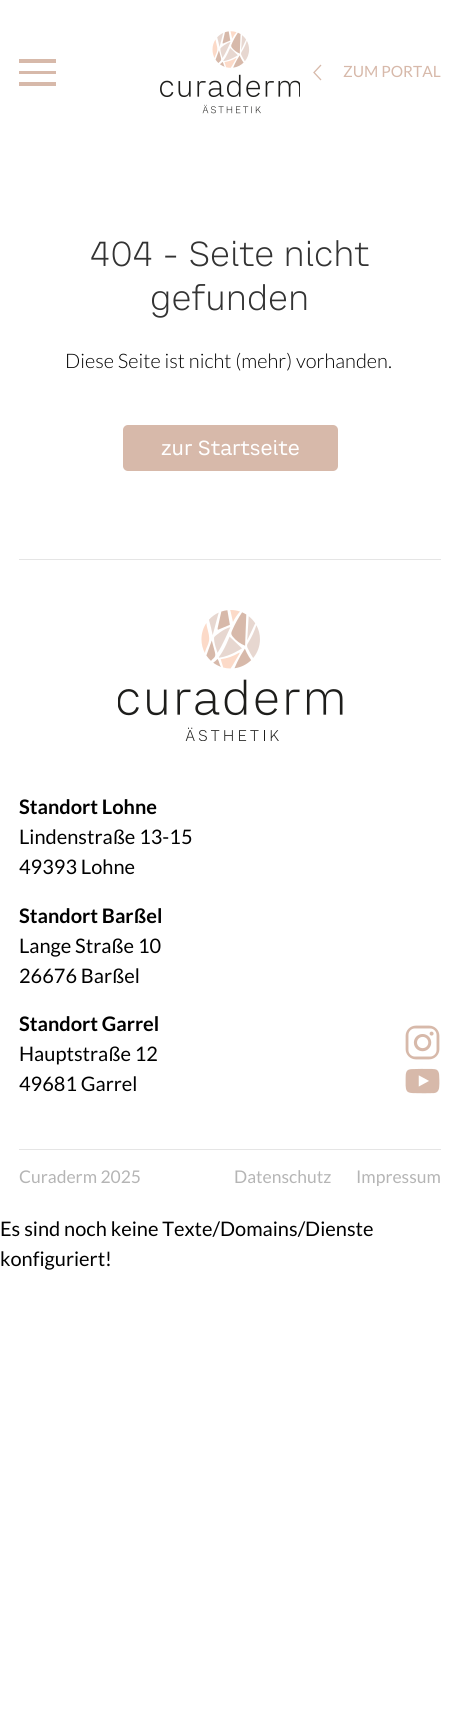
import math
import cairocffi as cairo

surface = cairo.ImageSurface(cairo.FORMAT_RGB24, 460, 1724)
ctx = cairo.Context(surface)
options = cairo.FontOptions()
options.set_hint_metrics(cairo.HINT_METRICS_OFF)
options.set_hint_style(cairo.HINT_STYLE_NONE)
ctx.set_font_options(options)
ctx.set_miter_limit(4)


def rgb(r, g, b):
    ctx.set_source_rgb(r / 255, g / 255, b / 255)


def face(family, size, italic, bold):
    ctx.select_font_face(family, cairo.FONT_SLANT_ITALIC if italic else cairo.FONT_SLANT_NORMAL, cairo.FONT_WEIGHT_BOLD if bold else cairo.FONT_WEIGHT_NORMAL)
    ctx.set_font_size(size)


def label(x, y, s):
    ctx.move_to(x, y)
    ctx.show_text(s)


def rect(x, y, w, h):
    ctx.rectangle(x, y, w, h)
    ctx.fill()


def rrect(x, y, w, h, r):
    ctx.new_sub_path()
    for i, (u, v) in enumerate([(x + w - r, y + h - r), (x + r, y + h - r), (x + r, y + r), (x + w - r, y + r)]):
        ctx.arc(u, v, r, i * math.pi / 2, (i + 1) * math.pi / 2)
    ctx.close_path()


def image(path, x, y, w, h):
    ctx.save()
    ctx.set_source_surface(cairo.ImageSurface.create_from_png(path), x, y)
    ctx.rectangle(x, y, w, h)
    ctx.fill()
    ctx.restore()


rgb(255, 255, 255)
ctx.paint()
rgb(215, 185, 170)
rect(19, 59, 37, 4)
rect(19, 71, 37, 3)
rect(19, 82, 37, 4)
image('image0.png', 160, 31, 140, 83)
ctx.new_path()
ctx.move_to(321, 80)
ctx.line_to(314, 72.5)
ctx.line_to(321, 65)
ctx.set_line_width(1.3)
ctx.stroke()
face('Lato', 15.5, 0, 0)
label(343, 77, 'ZUM PORTAL')
face('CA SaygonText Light', 34, 0, 0)
rgb(51, 51, 51)
label(90, 266, '404 - Seite nicht')
label(150, 310, 'gefunden')
face('Lato Light', 20, 0, 0)
rgb(0, 0, 0)
label(65, 368, 'Diese Seite ist nicht (mehr) vorhanden.')
rgb(215, 185, 170)
rrect(123, 425, 215, 46, 5)
ctx.fill()
face('CA SaygonText', 20, 0, 0)
rgb(255, 255, 255)
label(161, 455, 'zur Startseite')
rgb(229, 229, 229)
rect(19, 559, 422, 1)
image('image1.png', 118, 610, 225, 131)
face('Lato', 20, 0, 1)
rgb(0, 0, 0)
label(19, 814, 'Standort Lohne')
face('Lato', 20, 0, 0)
label(19, 844, 'Lindenstraße 13-15')
label(19, 874, '49393 Lohne')
face('Lato', 20, 0, 1)
label(19, 923, 'Standort Barßel')
face('Lato', 20, 0, 0)
label(19, 953, 'Lange Straße 10')
label(19, 983, '26676 Barßel')
face('Lato', 20, 0, 1)
label(19, 1031, 'Standort Garrel')
face('Lato', 20, 0, 0)
label(19, 1061, 'Hauptstraße 12')
label(19, 1091, '49681 Garrel')
image('image2.png', 405, 1025, 35, 35)
image('image3.png', 405, 1068, 35, 26)
rgb(229, 229, 229)
rect(19, 1149, 422, 1)
face('Lato', 17.5, 0, 0)
rgb(181, 181, 181)
label(19, 1183, 'Curaderm 2025')
label(234, 1183, 'Datenschutz')
label(356, 1183, 'Impressum')
face('Lato', 20, 0, 0)
rgb(0, 0, 0)
label(0, 1236, 'Es sind noch keine Texte/Domains/Dienste')
label(0, 1266, 'konfiguriert!')
surface.write_to_png('render.png')
